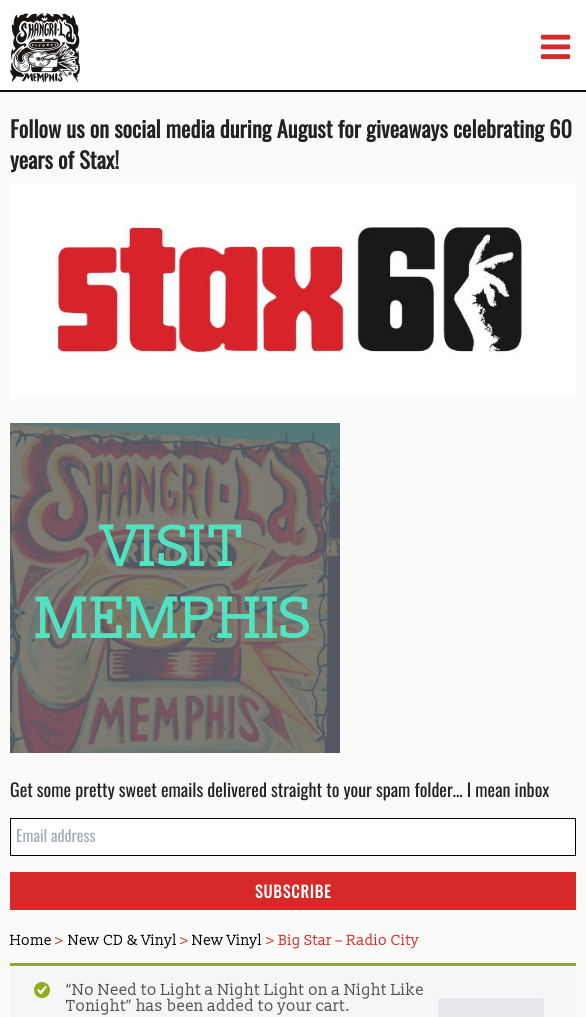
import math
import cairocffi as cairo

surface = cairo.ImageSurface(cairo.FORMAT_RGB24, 586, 1017)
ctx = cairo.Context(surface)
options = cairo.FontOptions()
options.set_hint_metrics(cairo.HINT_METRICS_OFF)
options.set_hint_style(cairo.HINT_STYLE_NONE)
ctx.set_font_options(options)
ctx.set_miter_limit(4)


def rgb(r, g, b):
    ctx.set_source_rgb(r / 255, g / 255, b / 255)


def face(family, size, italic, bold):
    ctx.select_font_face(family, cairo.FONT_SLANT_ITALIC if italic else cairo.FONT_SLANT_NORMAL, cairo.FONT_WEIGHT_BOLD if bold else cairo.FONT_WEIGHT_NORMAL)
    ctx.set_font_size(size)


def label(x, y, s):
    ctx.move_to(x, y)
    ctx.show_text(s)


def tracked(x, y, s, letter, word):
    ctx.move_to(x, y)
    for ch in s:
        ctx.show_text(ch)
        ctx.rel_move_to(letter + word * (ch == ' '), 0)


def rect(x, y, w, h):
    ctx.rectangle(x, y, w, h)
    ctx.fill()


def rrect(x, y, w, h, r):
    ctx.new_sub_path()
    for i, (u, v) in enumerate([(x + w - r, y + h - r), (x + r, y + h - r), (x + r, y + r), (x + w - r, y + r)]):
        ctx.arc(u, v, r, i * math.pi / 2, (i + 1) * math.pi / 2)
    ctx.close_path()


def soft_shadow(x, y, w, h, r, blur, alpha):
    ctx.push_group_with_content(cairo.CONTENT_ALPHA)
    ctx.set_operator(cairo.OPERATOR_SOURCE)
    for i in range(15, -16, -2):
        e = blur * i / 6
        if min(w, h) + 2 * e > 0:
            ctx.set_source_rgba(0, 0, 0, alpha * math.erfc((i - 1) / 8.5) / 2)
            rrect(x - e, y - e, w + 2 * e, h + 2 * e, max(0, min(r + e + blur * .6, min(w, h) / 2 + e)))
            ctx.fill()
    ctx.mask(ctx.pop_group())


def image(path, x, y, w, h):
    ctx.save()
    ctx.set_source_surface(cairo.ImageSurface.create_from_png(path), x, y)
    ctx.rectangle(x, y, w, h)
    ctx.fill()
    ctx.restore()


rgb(250, 250, 249)
ctx.paint()
rgb(0, 0, 0)
rect(0, 90, 586, 2)
rgb(190, 193, 194)
soft_shadow(0, 2, 586, 90, 0, 1, 0.1)
rgb(255, 255, 255)
rect(0, 0, 586, 90)
image('image0.png', 10, 13, 70, 70)
image('image1.png', 541, 34, 30, 25)
face('Oswald', 22.4, 0, 1)
rgb(34, 34, 34)
label(10, 138, 'Follow us on social media during August for giveaways celebrating 60')
label(10, 169, 'years of Stax!')
image('image2.png', 10, 183, 566, 216)
image('image3.png', 10, 423, 330, 330)
face('Oswald', 18, 0, 0)
label(10, 797, 'Get some pretty sweet emails delivered straight to your spam folder… I mean inbox')
rgb(255, 255, 255)
ctx.rectangle(10.5, 818.5, 565, 37)
ctx.fill_preserve()
rgb(0, 0, 0)
ctx.set_line_width(1)
ctx.stroke()
face('Oswald', 16, 0, 0)
rgb(161, 174, 184)
label(16, 842, 'Email address')
rgb(214, 41, 41)
rect(10, 872, 566, 38)
face('Oswald', 16, 0, 1)
rgb(255, 255, 255)
tracked(255, 898, 'SUBSCRIBE', 1, 0)
face('Slabo 13px', 14.75, 0, 0)
rgb(0, 0, 0)
label(10, 945, 'Home')
rgb(214, 41, 41)
label(55, 945, '>')
rgb(0, 0, 0)
label(68, 945, 'New CD & Vinyl')
rgb(214, 41, 41)
label(180, 945, '>')
rgb(0, 0, 0)
label(192, 945, 'New Vinyl')
rgb(214, 41, 41)
label(266, 945, '> Big Star – Radio City')
rgb(246, 245, 248)
rect(10, 966, 566, 51)
rgb(143, 174, 27)
rect(10, 963, 566, 3)
image('image4.png', 34, 982, 16, 16)
face('Slabo 13px', 16, 0, 0)
rgb(81, 81, 81)
label(66, 995, '“No Need to Light a Night Light on a Night Like')
label(66, 1011, 'Tonight” has been added to your cart.')
rgb(233, 230, 237)
rrect(438, 998, 106, 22, 3)
ctx.fill()
surface.write_to_png('render.png')
